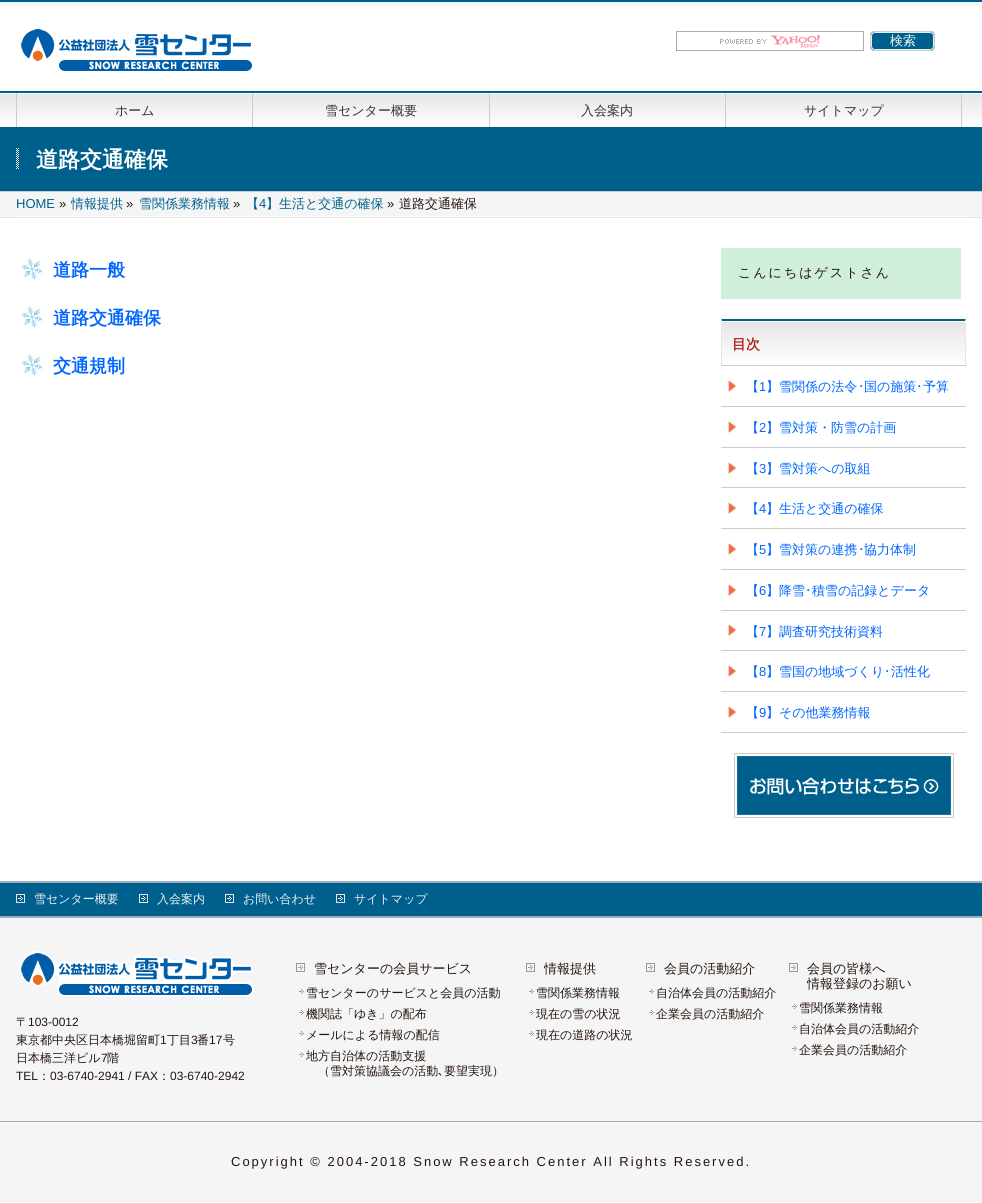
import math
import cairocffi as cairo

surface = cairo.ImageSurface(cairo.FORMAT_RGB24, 982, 1203)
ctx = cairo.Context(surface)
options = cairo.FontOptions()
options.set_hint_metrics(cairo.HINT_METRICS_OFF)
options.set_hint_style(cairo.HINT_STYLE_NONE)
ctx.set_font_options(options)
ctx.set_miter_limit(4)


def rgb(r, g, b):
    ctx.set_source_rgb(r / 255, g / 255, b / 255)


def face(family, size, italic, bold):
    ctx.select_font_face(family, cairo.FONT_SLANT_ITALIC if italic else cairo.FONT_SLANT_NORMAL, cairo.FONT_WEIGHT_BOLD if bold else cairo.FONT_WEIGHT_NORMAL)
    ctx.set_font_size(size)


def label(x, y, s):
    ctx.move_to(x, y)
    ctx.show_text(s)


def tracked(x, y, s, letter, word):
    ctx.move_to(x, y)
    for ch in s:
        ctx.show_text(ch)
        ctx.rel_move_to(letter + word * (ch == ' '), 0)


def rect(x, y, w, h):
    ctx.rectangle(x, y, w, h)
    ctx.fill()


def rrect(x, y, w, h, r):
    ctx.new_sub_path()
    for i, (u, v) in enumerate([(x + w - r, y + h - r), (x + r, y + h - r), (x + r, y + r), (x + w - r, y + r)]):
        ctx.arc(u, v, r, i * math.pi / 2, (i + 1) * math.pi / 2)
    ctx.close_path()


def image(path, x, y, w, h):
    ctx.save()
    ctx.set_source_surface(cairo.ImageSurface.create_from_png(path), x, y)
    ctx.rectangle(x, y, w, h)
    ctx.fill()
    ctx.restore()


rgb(255, 255, 255)
ctx.paint()
rgb(245, 245, 245)
rect(0, 2, 982, 4)
rgb(0, 96, 141)
rect(0, 0, 982, 2)
image('image0.png', 21, 29, 231, 42)
image('image1.png', 720, 35, 100, 13)
ctx.rectangle(676.5, 31.5, 187, 19)
rgb(165, 172, 178)
ctx.set_line_width(1)
ctx.stroke()
rgb(0, 96, 141)
rrect(870, 31, 65, 20, 5)
ctx.fill()
rrect(871.5, 32.5, 62, 17, 3.5)
rgb(230, 239, 244)
ctx.stroke()
rrect(870.5, 31.5, 64, 19, 4.5)
rgb(204, 204, 204)
ctx.stroke()
face('WenQuanYi Zen Hei Medium', 13, 0, 0)
rgb(245, 245, 245)
label(890, 45, '検索')
gradient = cairo.LinearGradient(491, 93, 491, 127)
gradient.add_color_stop_rgba(0, 0.898, 0.898, 0.898, 1)
gradient.add_color_stop_rgba(1, 1, 1, 1, 1)
ctx.set_source(gradient)
rect(0, 94, 982, 30)
rgb(0, 96, 141)
rect(0, 91, 982, 2)
rgb(204, 204, 204)
rect(16, 93, 1, 34)
rect(252, 93, 1, 34)
rgb(51, 51, 51)
label(115, 115, 'ホーム')
rgb(204, 204, 204)
rect(489, 93, 1, 34)
rgb(51, 51, 51)
label(325, 115, '雪センター概要')
rgb(204, 204, 204)
rect(725, 93, 1, 34)
rgb(51, 51, 51)
label(581, 115, '入会案内')
rgb(204, 204, 204)
rect(961, 93, 1, 34)
rgb(51, 51, 51)
label(804, 115, 'サイトマップ')
rgb(0, 96, 141)
rect(0, 127, 982, 64)
rgb(204, 204, 204)
rect(0, 191, 982, 1)
image('image2.png', 16, 148, 3, 21)
face('WenQuanYi Zen Hei', 22, 0, 1)
rgb(255, 255, 255)
label(36, 167, '道路交通確保')
rgb(245, 245, 245)
rect(0, 192, 982, 25)
rgb(229, 229, 229)
rect(0, 217, 982, 1)
rgb(255, 255, 255)
rect(16, 216, 950, 1)
face('Liberation Sans', 13, 0, 0)
rgb(0, 96, 141)
label(16, 208, 'HOME')
rgb(36, 20, 14)
label(59, 208, '»')
face('WenQuanYi Zen Hei Medium', 13, 0, 0)
rgb(0, 96, 141)
label(71, 208, '情報提供')
face('Liberation Sans', 13, 0, 0)
rgb(36, 20, 14)
label(126, 208, '»')
face('WenQuanYi Zen Hei Medium', 13, 0, 0)
rgb(0, 96, 141)
label(139, 208, '雪関係業務情報')
face('Liberation Sans', 13, 0, 0)
rgb(36, 20, 14)
label(233, 208, '»')
face('WenQuanYi Zen Hei Medium', 13, 0, 0)
rgb(0, 96, 141)
label(246, 208, '【')
face('Liberation Sans', 13, 0, 0)
label(259, 208, '4')
face('WenQuanYi Zen Hei Medium', 13, 0, 0)
label(266, 208, '】生活と交通の確保')
face('Liberation Sans', 13, 0, 0)
rgb(36, 20, 14)
label(387, 208, '»')
face('WenQuanYi Zen Hei Medium', 13, 0, 0)
label(399, 208, '道路交通確保')
image('image3.png', 21, 258, 22, 22)
face('WenQuanYi Zen Hei', 18, 0, 1)
rgb(0, 102, 255)
label(53, 276, '道路一般')
image('image4.png', 21, 306, 22, 22)
label(53, 324, '道路交通確保')
image('image4.png', 21, 354, 22, 22)
label(53, 372, '交通規制')
rgb(208, 238, 220)
rect(721, 248, 240, 51)
face('WenQuanYi Zen Hei Medium', 13, 0, 0)
rgb(36, 20, 14)
tracked(738, 277, 'こんにちはゲストさん', 2, 0)
gradient = cairo.LinearGradient(722, 321, 722, 365)
gradient.add_color_stop_rgba(0, 0.898, 0.898, 0.898, 1)
gradient.add_color_stop_rgba(1, 1, 1, 1, 1)
ctx.set_source(gradient)
rect(722, 322, 243, 39)
rgb(0, 96, 141)
ctx.new_path()
ctx.move_to(721, 319)
ctx.line_to(966, 319)
ctx.line_to(965, 321)
ctx.line_to(722, 321)
ctx.close_path()
ctx.fill()
rgb(229, 229, 229)
ctx.new_path()
ctx.move_to(966, 319)
ctx.line_to(966, 366)
ctx.line_to(965, 365)
ctx.line_to(965, 321)
ctx.close_path()
ctx.fill()
rgb(204, 204, 204)
rect(721, 365, 245, 1)
rgb(229, 229, 229)
ctx.new_path()
ctx.move_to(721, 366)
ctx.line_to(721, 319)
ctx.line_to(722, 321)
ctx.line_to(722, 365)
ctx.close_path()
ctx.fill()
face('WenQuanYi Zen Hei', 14, 0, 1)
rgb(178, 34, 34)
label(732, 349, '目次')
rgb(204, 204, 204)
rect(721, 406, 245, 1)
image('image5.png', 728, 380, 9, 12)
face('WenQuanYi Zen Hei Medium', 13, 0, 0)
rgb(0, 102, 255)
label(746, 391, '【')
face('Liberation Sans', 13, 0, 0)
label(759, 391, '1')
face('WenQuanYi Zen Hei Medium', 13, 0, 0)
label(766, 391, '】雪関係の法令')
face('IPAPGothic', 13, 0, 0)
label(858, 391, '･')
face('WenQuanYi Zen Hei Medium', 13, 0, 0)
label(864, 391, '国の施策')
face('IPAPGothic', 13, 0, 0)
label(916, 391, '･')
face('WenQuanYi Zen Hei Medium', 13, 0, 0)
label(923, 391, '予算')
rgb(204, 204, 204)
rect(721, 447, 245, 1)
image('image5.png', 728, 421, 9, 12)
rgb(0, 102, 255)
label(746, 432, '【')
face('Liberation Sans', 13, 0, 0)
label(759, 432, '2')
face('WenQuanYi Zen Hei Medium', 13, 0, 0)
label(766, 432, '】雪対策・防雪の計画')
rgb(204, 204, 204)
rect(721, 487, 245, 1)
image('image5.png', 728, 462, 9, 12)
rgb(0, 102, 255)
label(746, 473, '【')
face('Liberation Sans', 13, 0, 0)
label(759, 473, '3')
face('WenQuanYi Zen Hei Medium', 13, 0, 0)
label(766, 473, '】雪対策への取組')
rgb(204, 204, 204)
rect(721, 528, 245, 1)
image('image5.png', 728, 502, 9, 12)
rgb(0, 102, 255)
label(746, 513, '【')
face('Liberation Sans', 13, 0, 0)
label(759, 513, '4')
face('WenQuanYi Zen Hei Medium', 13, 0, 0)
label(766, 513, '】生活と交通の確保')
rgb(204, 204, 204)
rect(721, 569, 245, 1)
image('image5.png', 728, 543, 9, 12)
rgb(0, 102, 255)
label(746, 554, '【')
face('Liberation Sans', 13, 0, 0)
label(759, 554, '5')
face('WenQuanYi Zen Hei Medium', 13, 0, 0)
label(766, 554, '】雪対策の連携')
face('IPAPGothic', 13, 0, 0)
label(858, 554, '･')
face('WenQuanYi Zen Hei Medium', 13, 0, 0)
label(864, 554, '協力体制')
rgb(204, 204, 204)
rect(721, 610, 245, 1)
image('image5.png', 728, 584, 9, 12)
rgb(0, 102, 255)
label(746, 595, '【')
face('Liberation Sans', 13, 0, 0)
label(759, 595, '6')
face('WenQuanYi Zen Hei Medium', 13, 0, 0)
label(766, 595, '】降雪')
face('IPAPGothic', 13, 0, 0)
label(805, 595, '･')
face('WenQuanYi Zen Hei Medium', 13, 0, 0)
label(812, 595, '積雪の記録とデータ')
rgb(204, 204, 204)
rect(721, 650, 245, 1)
image('image5.png', 728, 624, 9, 12)
rgb(0, 102, 255)
label(746, 636, '【')
face('Liberation Sans', 13, 0, 0)
label(759, 636, '7')
face('WenQuanYi Zen Hei Medium', 13, 0, 0)
label(766, 636, '】調査研究技術資料')
rgb(204, 204, 204)
rect(721, 691, 245, 1)
image('image5.png', 728, 665, 9, 12)
rgb(0, 102, 255)
label(746, 676, '【')
face('Liberation Sans', 13, 0, 0)
label(759, 676, '8')
face('WenQuanYi Zen Hei Medium', 13, 0, 0)
label(766, 676, '】雪国の地域づくり')
face('IPAPGothic', 13, 0, 0)
label(884, 676, '･')
face('WenQuanYi Zen Hei Medium', 13, 0, 0)
label(891, 676, '活性化')
rgb(204, 204, 204)
rect(721, 732, 245, 1)
image('image5.png', 728, 706, 9, 12)
rgb(0, 102, 255)
label(746, 717, '【')
face('Liberation Sans', 13, 0, 0)
label(759, 717, '9')
face('WenQuanYi Zen Hei Medium', 13, 0, 0)
label(766, 717, '】その他業務情報')
rgb(0, 96, 141)
rect(737, 756, 214, 59)
image('image6.png', 734, 753, 220, 65)
rect(0, 883, 982, 33)
rgb(156, 174, 191)
rect(0, 881, 982, 2)
image('image7.png', 16, 894, 9, 9)
face('WenQuanYi Zen Hei Medium', 12, 0, 0)
rgb(239, 239, 239)
label(34, 903, '雪センター概要')
image('image7.png', 139, 894, 9, 9)
label(157, 903, '入会案内')
image('image7.png', 225, 894, 9, 9)
label(243, 903, 'お問い合わせ')
image('image7.png', 336, 894, 9, 9)
label(354, 903, 'サイトマップ')
rgb(245, 245, 245)
rect(0, 918, 982, 203)
rgb(156, 174, 191)
rect(0, 916, 982, 2)
image('image8.png', 19, 951, 235, 47)
rgb(36, 20, 14)
label(16, 1026, '〒')
face('Liberation Sans', 12, 0, 0)
label(28, 1026, '103-0012')
face('WenQuanYi Zen Hei Medium', 12, 0, 0)
label(16, 1044, '東京都中央区日本橋堀留町')
face('Liberation Sans', 12, 0, 0)
label(160, 1044, '1')
face('WenQuanYi Zen Hei Medium', 12, 0, 0)
label(167, 1044, '丁目')
face('Liberation Sans', 12, 0, 0)
label(191, 1044, '3')
face('WenQuanYi Zen Hei Medium', 12, 0, 0)
label(197, 1044, '番')
face('Liberation Sans', 12, 0, 0)
label(209, 1044, '17')
face('WenQuanYi Zen Hei Medium', 12, 0, 0)
label(223, 1044, '号')
label(16, 1062, '日本橋三洋ビル')
face('Liberation Sans', 12, 0, 0)
label(101, 1062, '7')
face('WenQuanYi Zen Hei Medium', 12, 0, 0)
label(107, 1062, '階')
face('Liberation Sans', 12, 0, 0)
label(16, 1080, 'TEL')
face('WenQuanYi Zen Hei Medium', 12, 0, 0)
label(38, 1080, '：')
face('Liberation Sans', 12, 0, 0)
label(50, 1080, '03-6740-2941 / FAX')
face('WenQuanYi Zen Hei Medium', 12, 0, 0)
label(158, 1080, '：')
face('Liberation Sans', 12, 0, 0)
label(170, 1080, '03-6740-2942')
image('image9.png', 296, 963, 9, 9)
face('WenQuanYi Zen Hei Medium', 13, 0, 0)
label(314, 973, '雪センターの会員サービス')
image('image10.png', 299, 989, 5, 5)
face('WenQuanYi Zen Hei Medium', 12, 0, 0)
label(306, 997, '雪センターのサービスと会員の活動')
image('image10.png', 299, 1010, 5, 5)
label(306, 1018, '機関誌「ゆき」の配布')
image('image10.png', 299, 1031, 5, 5)
label(306, 1039, 'メールによる情報の配信')
image('image10.png', 299, 1052, 5, 5)
label(306, 1060, '地方自治体の活動支援')
label(318, 1075, '（雪対策協議会の活動')
face('IPAPGothic', 12, 0, 0)
label(438, 1075, '､')
face('WenQuanYi Zen Hei Medium', 12, 0, 0)
label(444, 1075, '要望実現）')
image('image9.png', 526, 963, 9, 9)
face('WenQuanYi Zen Hei Medium', 13, 0, 0)
label(544, 973, '情報提供')
image('image10.png', 529, 989, 5, 5)
face('WenQuanYi Zen Hei Medium', 12, 0, 0)
label(536, 997, '雪関係業務情報')
image('image10.png', 529, 1010, 5, 5)
label(536, 1018, '現在の雪の状況')
image('image10.png', 529, 1031, 5, 5)
label(536, 1039, '現在の道路の状況')
image('image9.png', 646, 963, 9, 9)
face('WenQuanYi Zen Hei Medium', 13, 0, 0)
label(664, 973, '会員の活動紹介')
image('image10.png', 649, 989, 5, 5)
face('WenQuanYi Zen Hei Medium', 12, 0, 0)
label(656, 997, '自治体会員の活動紹介')
image('image10.png', 649, 1010, 5, 5)
label(656, 1018, '企業会員の活動紹介')
image('image9.png', 789, 963, 9, 9)
face('WenQuanYi Zen Hei Medium', 13, 0, 0)
label(807, 973, '会員の皆様へ')
label(807, 988, '情報登録のお願い')
image('image10.png', 792, 1004, 5, 5)
face('WenQuanYi Zen Hei Medium', 12, 0, 0)
label(799, 1012, '雪関係業務情報')
image('image10.png', 792, 1025, 5, 5)
label(799, 1033, '自治体会員の活動紹介')
image('image10.png', 792, 1046, 5, 5)
label(799, 1054, '企業会員の活動紹介')
rgb(245, 245, 245)
rect(0, 1122, 982, 80)
rgb(156, 174, 191)
rect(0, 1121, 982, 1)
face('Liberation Sans', 13, 0, 0)
rgb(36, 20, 14)
tracked(231, 1166, 'Copyright © 2004-2018 Snow Research Center All Rights Reserved.', 2, 0)
surface.write_to_png('render.png')
